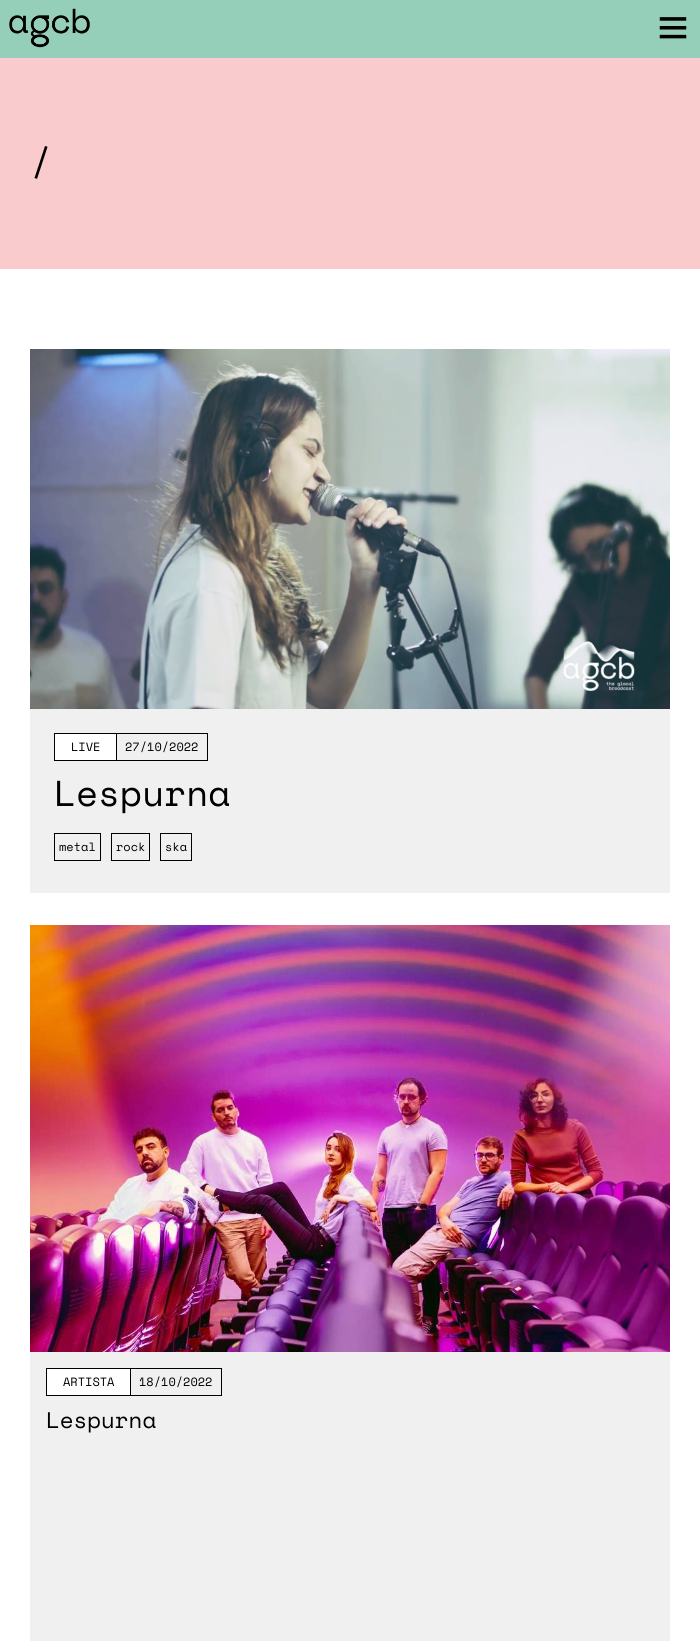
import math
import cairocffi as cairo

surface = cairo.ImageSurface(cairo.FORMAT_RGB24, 700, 1641)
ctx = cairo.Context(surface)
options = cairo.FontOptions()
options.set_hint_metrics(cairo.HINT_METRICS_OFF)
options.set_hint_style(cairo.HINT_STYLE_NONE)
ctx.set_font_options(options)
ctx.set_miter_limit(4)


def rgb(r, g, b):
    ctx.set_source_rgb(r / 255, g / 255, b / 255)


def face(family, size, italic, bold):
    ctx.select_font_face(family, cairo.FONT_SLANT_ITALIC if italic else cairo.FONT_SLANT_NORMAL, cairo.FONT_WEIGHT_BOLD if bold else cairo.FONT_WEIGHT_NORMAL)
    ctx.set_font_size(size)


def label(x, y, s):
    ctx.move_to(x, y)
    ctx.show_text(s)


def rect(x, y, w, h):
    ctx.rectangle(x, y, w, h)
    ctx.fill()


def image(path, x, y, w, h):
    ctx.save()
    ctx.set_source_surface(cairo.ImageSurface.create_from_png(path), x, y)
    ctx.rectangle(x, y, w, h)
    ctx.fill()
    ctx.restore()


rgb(255, 255, 255)
ctx.paint()
rgb(149, 206, 185)
rect(0, 0, 700, 58)
image('image0.png', 9, 8, 81, 40)
image('image1.png', 659, 17, 28, 22)
rgb(249, 203, 204)
rect(0, 58, 700, 211)
face('Space Mono', 36, 0, 0)
rgb(0, 0, 0)
label(30, 175, '/')
image('image2.png', 30, 349, 640, 360)
rgb(240, 240, 240)
rect(30, 709, 640, 184)
rgb(255, 255, 255)
ctx.rectangle(54.5, 733.5, 62, 27)
ctx.fill_preserve()
rgb(0, 0, 0)
ctx.set_line_width(1)
ctx.stroke()
face('Space Mono', 12, 0, 0)
label(71, 751, 'LIVE')
rect(117, 733, 91, 1)
rect(207, 733, 1, 28)
rect(117, 760, 91, 1)
label(125, 751, '27/10/2022')
face('Space Mono', 36, 0, 0)
label(54, 806, 'Lespurna')
ctx.rectangle(54.5, 833.5, 46, 27)
ctx.stroke()
face('Space Mono', 12, 0, 0)
label(59, 851, 'metal')
ctx.rectangle(111.5, 833.5, 38, 27)
ctx.stroke()
label(116, 851, 'rock')
ctx.rectangle(160.5, 833.5, 31, 27)
ctx.stroke()
label(165, 851, 'ska')
rgb(240, 240, 240)
rect(30, 1352, 640, 289)
image('image3.png', 30, 925, 640, 427)
rgb(255, 255, 255)
ctx.rectangle(46.5, 1368.5, 84, 27)
ctx.fill_preserve()
rgb(0, 0, 0)
ctx.stroke()
label(63, 1386, 'ARTISTA')
rect(131, 1368, 91, 1)
rect(221, 1368, 1, 28)
rect(131, 1395, 91, 1)
label(139, 1386, '18/10/2022')
face('Space Mono', 22.5, 0, 0)
label(46, 1428, 'Lespurna')
surface.write_to_png('render.png')
